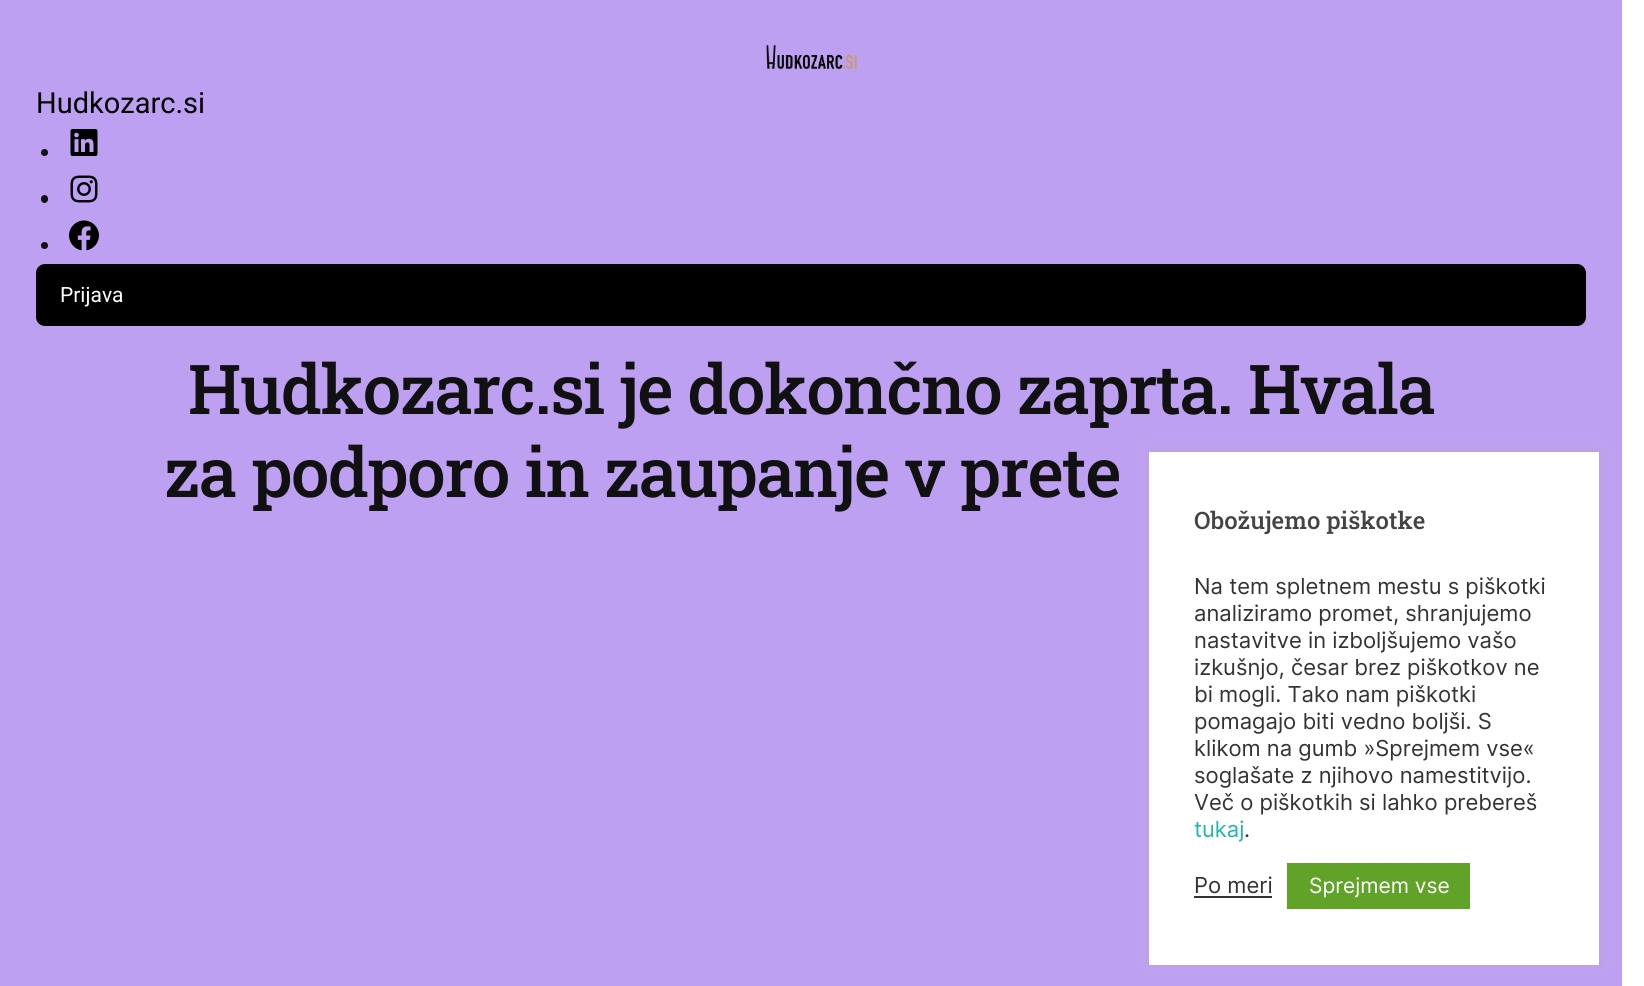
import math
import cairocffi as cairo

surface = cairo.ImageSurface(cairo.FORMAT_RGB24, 1644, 986)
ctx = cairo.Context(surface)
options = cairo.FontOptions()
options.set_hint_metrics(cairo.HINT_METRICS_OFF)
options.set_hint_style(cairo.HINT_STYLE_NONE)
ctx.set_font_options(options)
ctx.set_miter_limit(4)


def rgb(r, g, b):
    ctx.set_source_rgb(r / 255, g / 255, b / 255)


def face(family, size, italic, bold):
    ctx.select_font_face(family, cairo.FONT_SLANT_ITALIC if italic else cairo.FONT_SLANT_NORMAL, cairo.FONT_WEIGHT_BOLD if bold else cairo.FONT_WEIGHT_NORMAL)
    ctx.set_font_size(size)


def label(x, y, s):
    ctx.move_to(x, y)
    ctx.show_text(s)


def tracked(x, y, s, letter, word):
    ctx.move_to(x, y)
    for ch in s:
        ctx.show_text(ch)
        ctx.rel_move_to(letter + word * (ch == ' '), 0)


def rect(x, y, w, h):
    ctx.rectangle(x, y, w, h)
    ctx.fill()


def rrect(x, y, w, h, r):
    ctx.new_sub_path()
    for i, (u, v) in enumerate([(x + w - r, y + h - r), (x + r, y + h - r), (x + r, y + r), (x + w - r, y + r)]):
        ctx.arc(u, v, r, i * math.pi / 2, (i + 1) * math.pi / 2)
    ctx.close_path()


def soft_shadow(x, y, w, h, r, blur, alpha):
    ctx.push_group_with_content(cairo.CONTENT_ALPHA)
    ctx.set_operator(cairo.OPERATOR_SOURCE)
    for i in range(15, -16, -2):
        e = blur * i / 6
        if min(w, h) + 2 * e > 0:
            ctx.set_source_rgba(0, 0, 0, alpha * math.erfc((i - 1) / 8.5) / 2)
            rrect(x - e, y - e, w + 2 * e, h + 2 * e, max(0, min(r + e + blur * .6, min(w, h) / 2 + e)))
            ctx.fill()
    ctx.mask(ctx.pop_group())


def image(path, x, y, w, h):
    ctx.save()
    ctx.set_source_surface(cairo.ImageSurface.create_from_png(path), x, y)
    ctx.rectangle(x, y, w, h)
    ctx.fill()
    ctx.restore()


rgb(255, 255, 255)
ctx.paint()
rgb(190, 160, 242)
rect(0, 0, 1622, 986)
image('image0.png', 766, 45, 91, 24)
face('Roboto', 29, 0, 0)
rgb(0, 0, 0)
label(36, 113, 'Hudkozarc.si')
rgb(17, 17, 17)
ctx.new_path()
ctx.arc(44.5, 152.5, 3.5, 0, 2 * math.pi)
ctx.fill()
image('image1.png', 70, 129, 28, 27)
rrect(41, 195, 7, 8, 3.5)
ctx.fill()
image('image2.png', 70, 175, 28, 28)
ctx.arc(44.5, 245.5, 3.5, 0, 2 * math.pi)
ctx.fill()
image('image3.png', 69, 220, 30, 31)
rgb(0, 0, 0)
rrect(36, 264, 1550, 62, 9)
ctx.fill()
face('Roboto', 21, 0, 0)
rgb(255, 255, 255)
label(60, 302, 'Prijava')
face('Roboto Slab Medium', 68.75, 0, 0)
rgb(17, 17, 17)
tracked(188, 414, 'Hudkozarc.si je dokončno zaprta. Hvala', -1.35, 0)
tracked(164, 497, 'za podporo in zaupanje v prete', -1.35, 0)
rgb(172, 171, 171)
soft_shadow(1149, 450, 450, 513, 0, 7.5, 0.3)
rgb(255, 255, 255)
rect(1149, 452, 450, 513)
face('Roboto Slab Medium', 24, 0, 0)
rgb(68, 68, 68)
label(1194, 529, 'Obožujemo piškotke')
face('Inter', 22, 0, 0)
rgb(51, 51, 51)
label(1194, 594, 'Na tem spletnem mestu s piškotki')
label(1194, 621, 'analiziramo promet, shranjujemo')
label(1194, 648, 'nastavitve in izboljšujemo vašo')
label(1194, 675, 'izkušnjo, česar brez piškotkov ne')
label(1194, 702, 'bi mogli. Tako nam piškotki')
label(1194, 729, 'pomagajo biti vedno boljši. S')
label(1194, 756, 'klikom na gumb »Sprejmem vse«')
label(1194, 783, 'soglašate z njihovo namestitvijo.')
label(1194, 810, 'Več o piškotkih si lahko prebereš')
rgb(30, 184, 168)
label(1194, 837, 'tukaj')
rgb(51, 51, 51)
label(1244, 837, '.')
label(1194, 893, 'Po meri')
rect(1194, 896, 78, 2)
rgb(97, 162, 41)
rect(1287, 863, 183, 46)
face('Inter', 21, 0, 0)
rgb(255, 255, 255)
label(1309, 893, 'Sprejmem vse')
surface.write_to_png('render.png')
